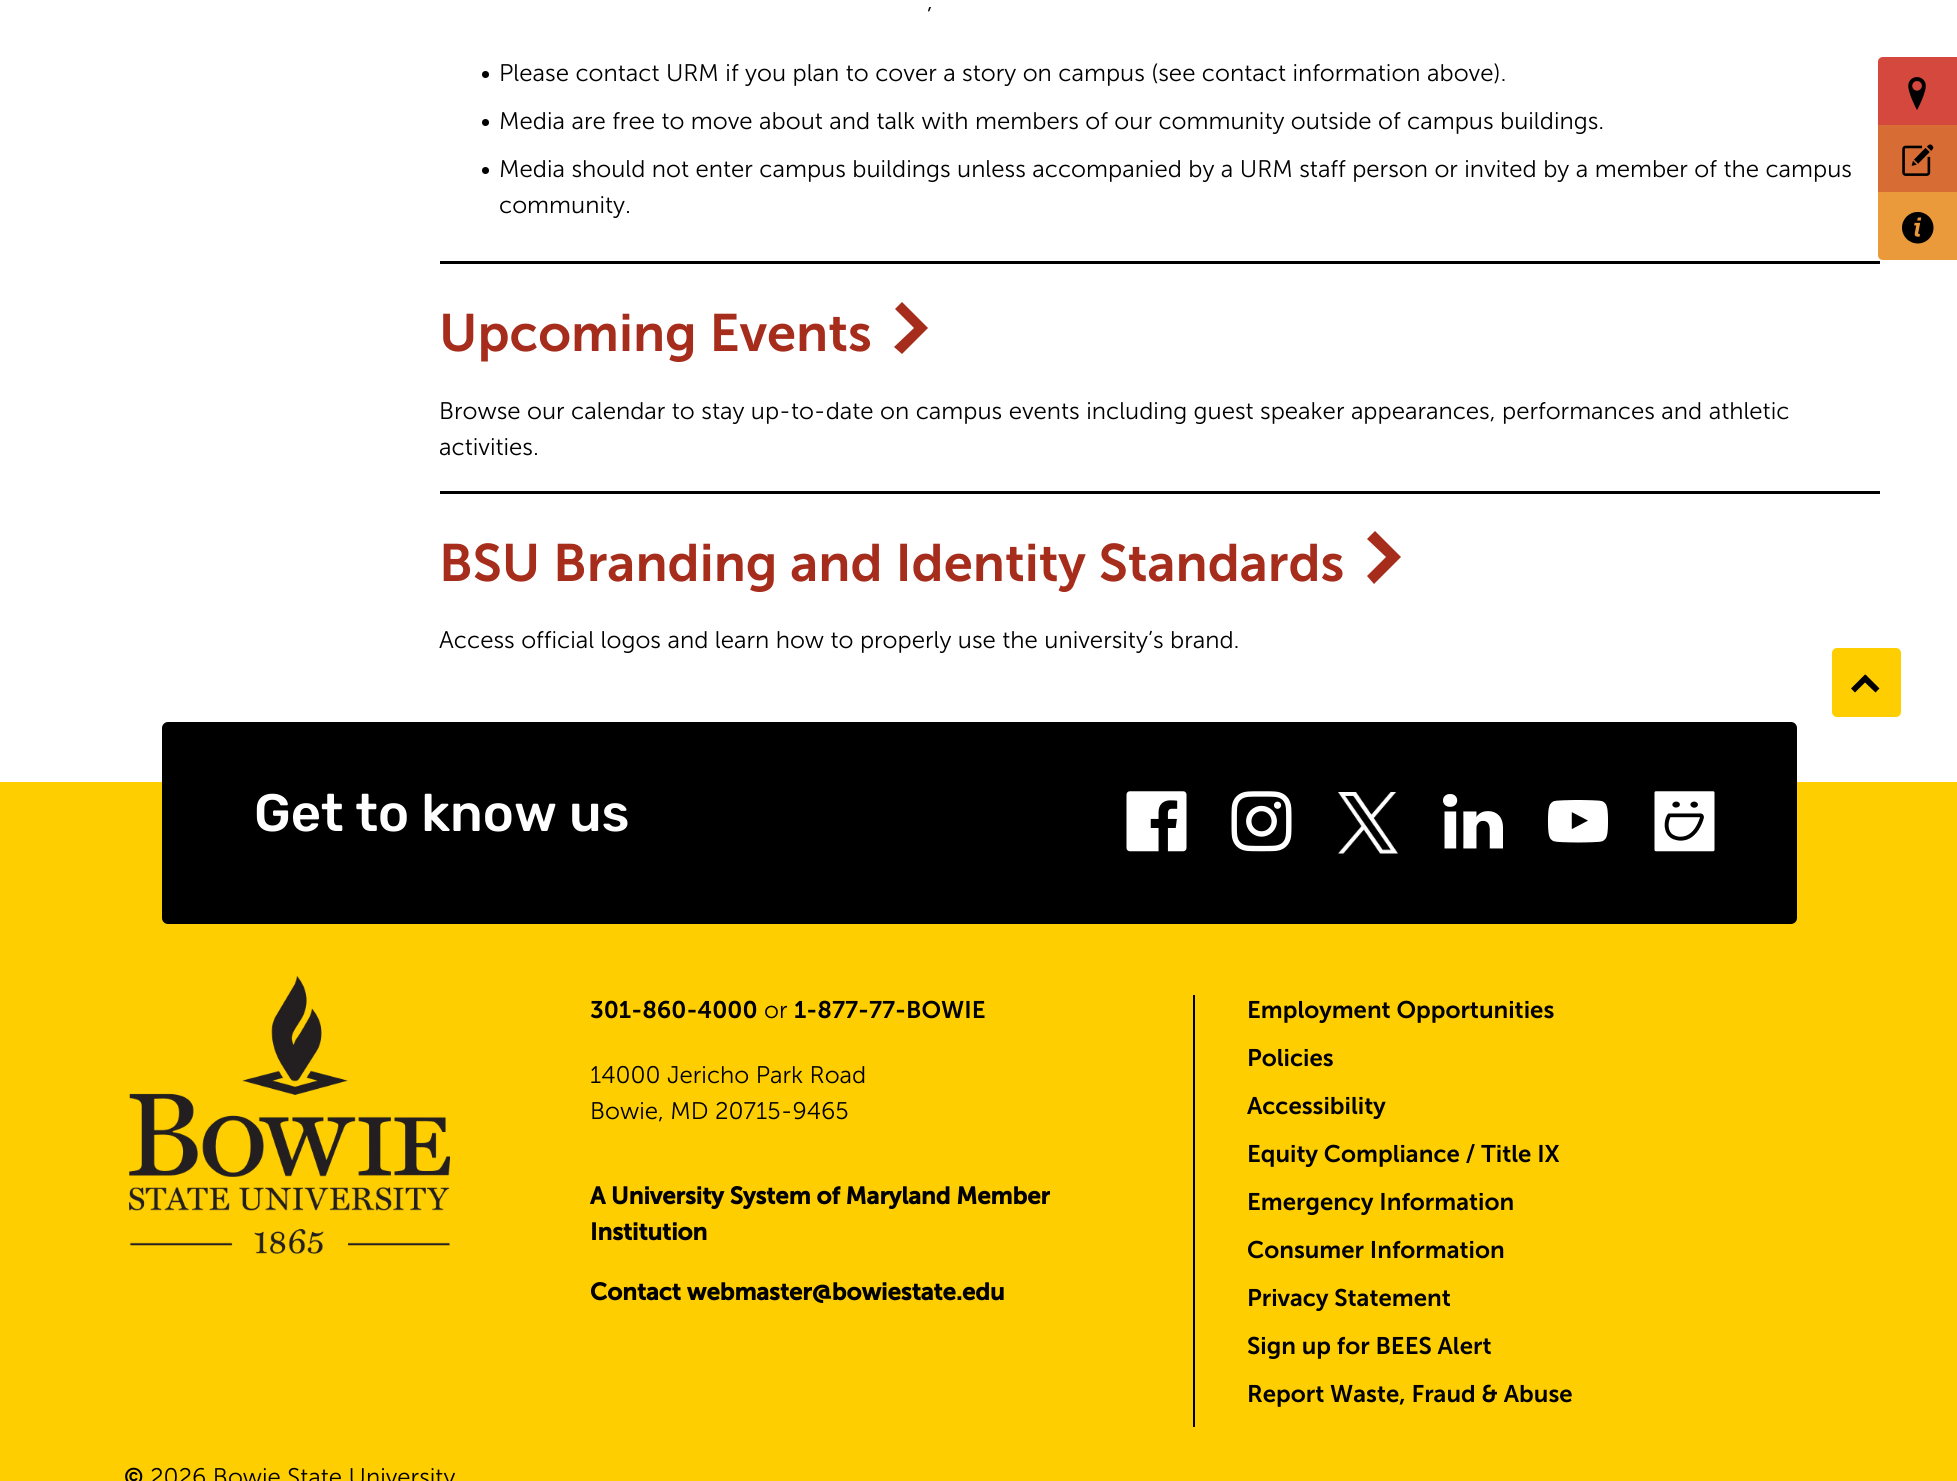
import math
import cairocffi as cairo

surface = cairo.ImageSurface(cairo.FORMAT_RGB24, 1957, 1481)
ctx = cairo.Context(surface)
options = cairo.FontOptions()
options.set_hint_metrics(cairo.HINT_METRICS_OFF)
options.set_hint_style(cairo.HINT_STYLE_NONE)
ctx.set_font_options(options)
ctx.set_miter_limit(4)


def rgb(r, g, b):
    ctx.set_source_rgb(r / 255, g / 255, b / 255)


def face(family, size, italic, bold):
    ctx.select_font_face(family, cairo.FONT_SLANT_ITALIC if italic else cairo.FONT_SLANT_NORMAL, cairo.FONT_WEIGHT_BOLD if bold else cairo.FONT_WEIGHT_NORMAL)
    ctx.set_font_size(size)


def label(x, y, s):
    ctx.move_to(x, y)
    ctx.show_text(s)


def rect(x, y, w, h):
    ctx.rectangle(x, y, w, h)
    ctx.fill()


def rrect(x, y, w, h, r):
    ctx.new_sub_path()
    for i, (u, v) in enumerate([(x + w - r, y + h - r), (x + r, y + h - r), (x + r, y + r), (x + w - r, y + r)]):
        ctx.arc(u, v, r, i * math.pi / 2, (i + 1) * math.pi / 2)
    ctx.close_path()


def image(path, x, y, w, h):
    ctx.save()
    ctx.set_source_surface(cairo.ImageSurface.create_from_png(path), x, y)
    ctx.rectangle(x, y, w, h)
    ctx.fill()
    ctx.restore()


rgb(255, 255, 255)
ctx.paint()
face('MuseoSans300', 24, 0, 0)
rgb(0, 0, 0)
label(927, 9, ',')
ctx.new_path()
ctx.arc(485.5, 74.5, 3.5, 0, 2 * math.pi)
ctx.fill()
label(499, 81, 'Please contact URM if you plan to cover a story on campus (see contact information above).')
ctx.new_path()
ctx.arc(485.5, 122.5, 3.5, 0, 2 * math.pi)
ctx.fill()
label(499, 129, 'Media are free to move about and talk with members of our community outside of campus buildings.')
ctx.new_path()
ctx.arc(485.5, 170.5, 3.5, 0, 2 * math.pi)
ctx.fill()
label(499, 177, 'Media should not enter campus buildings unless accompanied by a URM staff person or invited by a member of the campus')
label(499, 213, 'community.')
rect(440, 261, 1440, 3)
face('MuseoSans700', 52.5, 0, 0)
rgb(166, 44, 28)
label(439, 351, 'Upcoming Events')
ctx.new_path()
ctx.move_to(928, 328)
ctx.line_to(902, 354)
ctx.line_to(894, 347)
ctx.line_to(914, 328)
ctx.line_to(895, 309)
ctx.line_to(902, 302)
ctx.close_path()
ctx.fill()
face('MuseoSans300', 24, 0, 0)
rgb(0, 0, 0)
label(439, 419, 'Browse our calendar to stay up-to-date on campus events including guest speaker appearances, performances and athletic')
label(439, 455, 'activities.')
rect(440, 491, 1440, 3)
face('MuseoSans700', 52.5, 0, 0)
rgb(166, 44, 28)
label(439, 581, 'BSU Branding and Identity Standards')
ctx.new_path()
ctx.move_to(1400, 558)
ctx.line_to(1374, 584)
ctx.line_to(1367, 576)
ctx.line_to(1386, 557)
ctx.line_to(1367, 539)
ctx.line_to(1375, 531)
ctx.line_to(1401, 557)
ctx.close_path()
ctx.fill()
face('MuseoSans300', 24, 0, 0)
rgb(0, 0, 0)
label(439, 648, 'Access official logos and learn how to properly use the university’s brand.')
rgb(212, 72, 62)
ctx.new_path()
ctx.move_to(1883, 57)
ctx.line_to(1957, 57)
ctx.curve_to(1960, 57, 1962, 59, 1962, 62)
ctx.line_to(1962, 125)
ctx.line_to(1878, 125)
ctx.line_to(1878, 62)
ctx.curve_to(1878, 59, 1880, 57, 1883, 57)
ctx.close_path()
ctx.fill()
image('image0.png', 1908, 77, 18, 33)
rgb(216, 108, 53)
rect(1878, 125, 79, 67)
image('image1.png', 1902, 144, 32, 32)
rgb(235, 154, 59)
ctx.new_path()
ctx.move_to(1878, 192)
ctx.line_to(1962, 192)
ctx.line_to(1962, 255)
ctx.curve_to(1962, 258, 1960, 260, 1957, 260)
ctx.line_to(1883, 260)
ctx.curve_to(1880, 260, 1878, 258, 1878, 255)
ctx.close_path()
ctx.fill()
image('image2.png', 1902, 212, 32, 32)
rgb(255, 206, 0)
rrect(1832, 648, 69, 69, 5)
ctx.fill()
rgb(0, 0, 0)
ctx.new_path()
ctx.move_to(1865.5, 674.5)
ctx.line_to(1879.5, 688.5)
ctx.line_to(1875.5, 692.5)
ctx.line_to(1865, 682.5)
ctx.line_to(1855, 692.5)
ctx.line_to(1851, 688.5)
ctx.line_to(1865, 674.5)
ctx.close_path()
ctx.fill()
rgb(255, 206, 0)
rect(0, 782, 1957, 699)
rgb(0, 0, 0)
rrect(162, 722, 1635, 202, 6)
ctx.fill()
face('Rubik Medium', 52.5, 0, 0)
rgb(255, 255, 255)
label(254, 831, 'Get to know us')
image('image3.png', 1126, 791, 61, 61)
image('image4.png', 1231, 791, 61, 61)
image('image5.png', 1338, 792, 60, 62)
image('image6.png', 1443, 794, 60, 55)
image('image7.png', 1548, 800, 60, 43)
image('image8.png', 1654, 791, 61, 61)
image('image9.png', 129, 976, 322, 278)
face('MuseoSans700', 24, 0, 0)
rgb(0, 0, 0)
label(590, 1018, '301-860-4000')
face('MuseoSans300', 24, 0, 0)
label(764, 1018, 'or')
face('MuseoSans700', 24, 0, 0)
label(794, 1018, '1-877-77-BOWIE')
face('MuseoSans300', 24, 0, 0)
label(590, 1083, '14000 Jericho Park Road')
label(590, 1119, 'Bowie, MD 20715-9465')
face('MuseoSans700', 24, 0, 1)
label(590, 1204, 'A University System of Maryland Member')
label(590, 1240, 'Institution')
label(590, 1300, 'Contact webmaster@bowiestate.edu')
rect(1193, 995, 2, 432)
face('MuseoSans700', 24, 0, 0)
label(1247, 1018, 'Employment Opportunities')
label(1247, 1066, 'Policies')
label(1247, 1114, 'Accessibility')
label(1247, 1162, 'Equity Compliance / Title IX')
label(1247, 1210, 'Emergency Information')
label(1247, 1258, 'Consumer Information')
label(1247, 1306, 'Privacy Statement')
label(1247, 1354, 'Sign up for BEES Alert')
label(1247, 1402, 'Report Waste, Fraud & Abuse')
label(124, 1485, '©')
face('MuseoSans300', 24, 0, 0)
label(150, 1485, '2026 Bowie State University')
surface.write_to_png('render.png')
